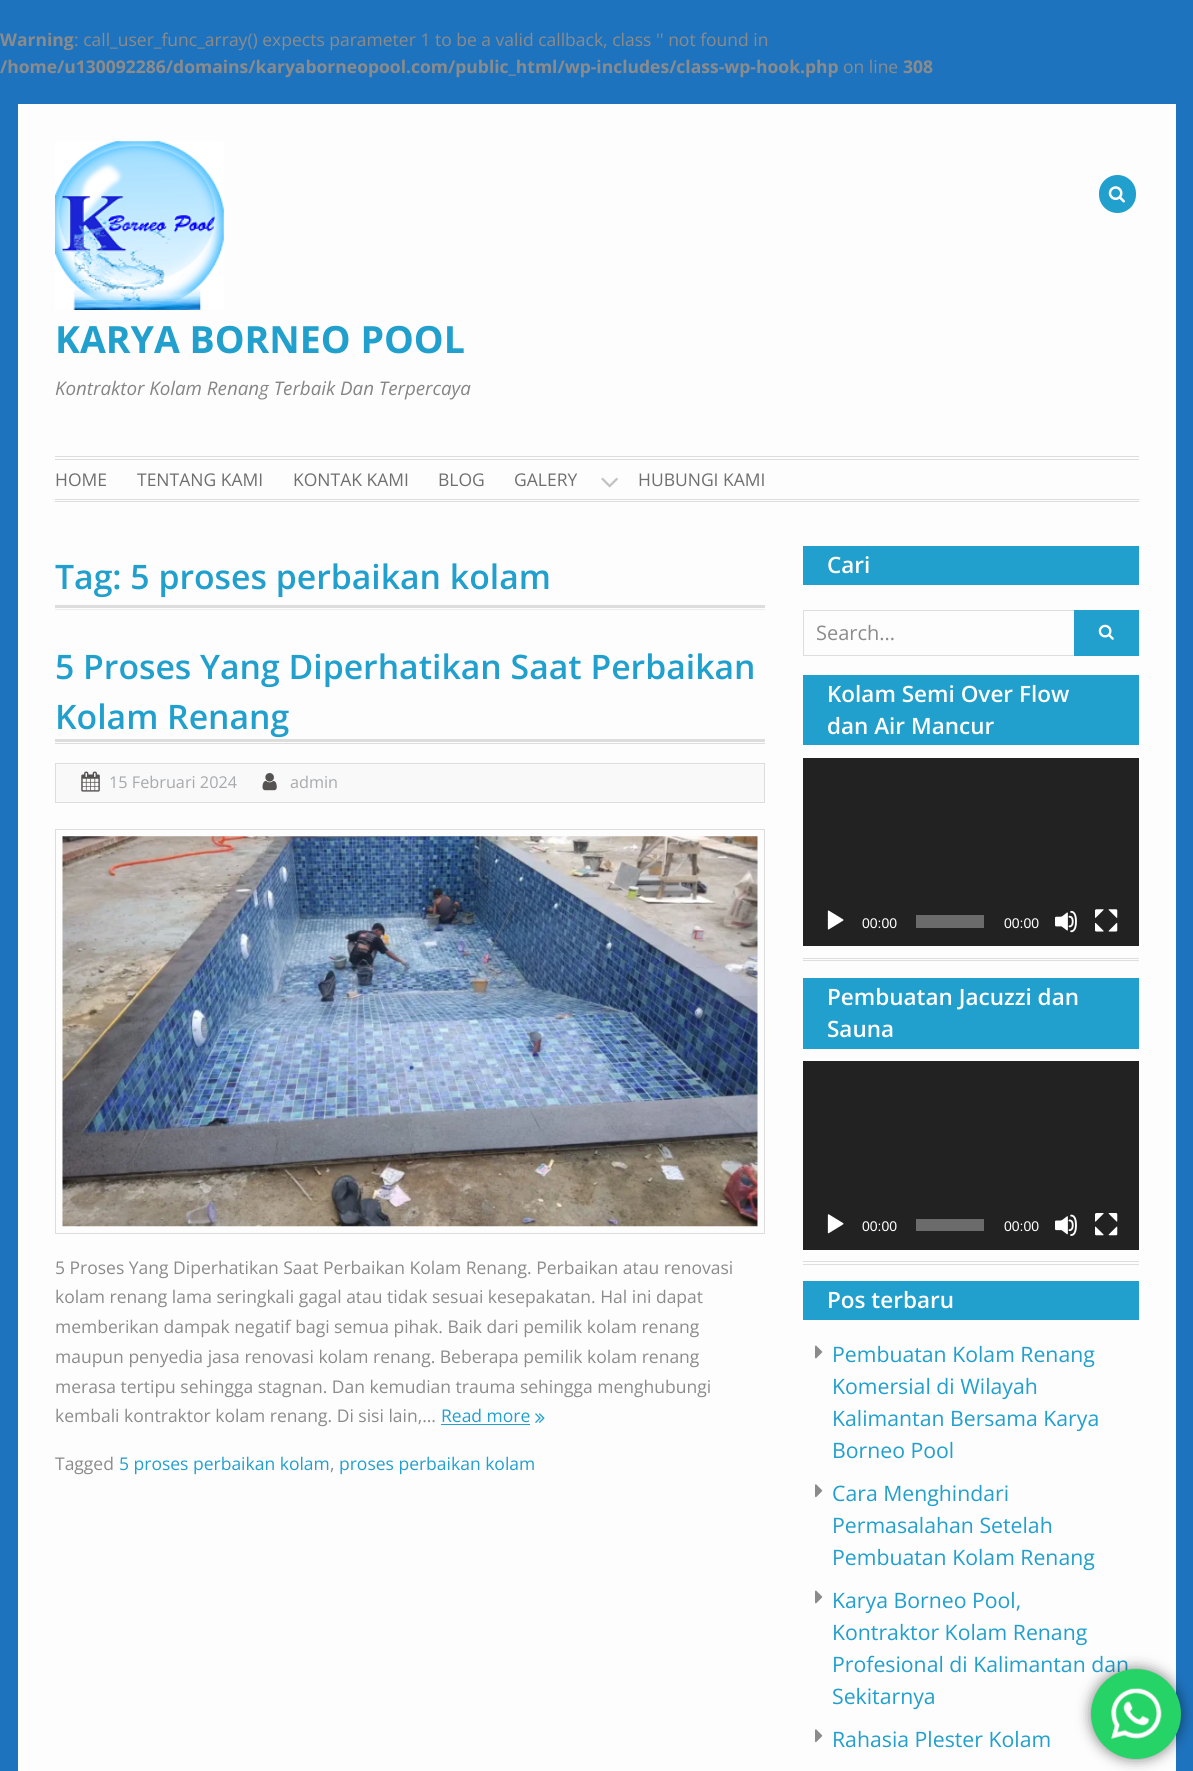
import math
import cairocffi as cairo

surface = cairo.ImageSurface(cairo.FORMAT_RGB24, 1193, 1771)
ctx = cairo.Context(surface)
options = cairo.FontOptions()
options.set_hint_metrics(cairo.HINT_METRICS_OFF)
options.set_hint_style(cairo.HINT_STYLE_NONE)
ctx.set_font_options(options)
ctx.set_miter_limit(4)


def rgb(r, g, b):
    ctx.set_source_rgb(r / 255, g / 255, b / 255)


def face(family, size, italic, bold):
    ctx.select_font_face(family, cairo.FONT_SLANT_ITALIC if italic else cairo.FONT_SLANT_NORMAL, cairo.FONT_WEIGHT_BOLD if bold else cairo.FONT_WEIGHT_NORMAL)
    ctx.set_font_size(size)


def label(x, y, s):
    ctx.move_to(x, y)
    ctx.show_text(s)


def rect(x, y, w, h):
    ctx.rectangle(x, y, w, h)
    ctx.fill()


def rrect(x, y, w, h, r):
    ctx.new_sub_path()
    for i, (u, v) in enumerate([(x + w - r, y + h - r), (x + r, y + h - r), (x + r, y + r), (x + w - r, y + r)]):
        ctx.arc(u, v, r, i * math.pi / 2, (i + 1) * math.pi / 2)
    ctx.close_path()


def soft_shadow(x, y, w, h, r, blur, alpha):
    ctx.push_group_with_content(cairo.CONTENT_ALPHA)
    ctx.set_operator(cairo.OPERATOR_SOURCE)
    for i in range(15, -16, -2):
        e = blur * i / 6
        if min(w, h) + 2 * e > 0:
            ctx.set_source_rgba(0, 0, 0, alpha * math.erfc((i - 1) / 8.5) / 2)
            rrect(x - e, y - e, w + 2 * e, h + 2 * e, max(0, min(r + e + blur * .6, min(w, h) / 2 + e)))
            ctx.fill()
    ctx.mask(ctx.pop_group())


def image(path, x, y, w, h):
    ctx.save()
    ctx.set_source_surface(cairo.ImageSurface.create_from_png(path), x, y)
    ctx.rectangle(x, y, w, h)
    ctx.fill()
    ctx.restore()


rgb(30, 115, 190)
ctx.paint()
face('Open Sans', 17.5, 0, 1)
rgb(140, 139, 139)
label(0, 46, 'Warning')
face('Open Sans', 17.5, 0, 0)
label(74, 46, ': call_user_func_array() expects parameter 1 to be a valid callback, class \'\' not found in')
face('Open Sans', 17.5, 0, 1)
label(0, 73, '/home/u130092286/domains/karyaborneopool.com/public_html/wp-includes/class-wp-hook.php')
face('Open Sans', 17.5, 0, 0)
label(843, 73, 'on line')
face('Open Sans', 17.5, 0, 1)
label(903, 73, '308')
rgb(253, 253, 253)
rect(18, 104, 1158, 1667)
rgb(33, 159, 205)
rrect(1099, 175, 37, 38, 18.5)
ctx.fill()
image('image0.png', 1108, 186, 17, 17)
image('image1.png', 55, 141, 169, 169)
face('Open Sans', 37.5, 0, 1)
label(55, 353, 'KARYA BORNEO POOL')
face('Open Sans', 18.75, 1, 0)
rgb(133, 133, 133)
label(55, 395, 'Kontraktor Kolam Renang Terbaik Dan Terpercaya')
rgb(221, 221, 221)
rect(55, 456, 1084, 1)
rect(55, 459, 1084, 1)
rect(55, 499, 1084, 1)
rect(55, 501, 1084, 1)
face('Open Sans', 17.5, 0, 0)
rgb(111, 111, 111)
label(55, 486, 'HOME')
label(137, 486, 'TENTANG KAMI')
label(293, 486, 'KONTAK KAMI')
label(438, 486, 'BLOG')
label(514, 486, 'GALERY')
image('image2.png', 601, 477, 17, 11)
label(638, 486, 'HUBUNGI KAMI')
rgb(238, 238, 238)
rect(55, 609, 710, 1)
face('Open Sans SemiBold', 33.75, 0, 0)
rgb(33, 159, 205)
label(55, 589, 'Tag: 5 proses perbaikan kolam')
rgb(221, 221, 221)
rect(55, 605, 710, 3)
rect(55, 743, 710, 1)
rgb(33, 159, 205)
label(55, 679, '5 Proses Yang Diperhatikan Saat Perbaikan')
label(55, 729, 'Kolam Renang')
rgb(221, 221, 221)
rect(55, 739, 710, 3)
rgb(249, 249, 249)
ctx.rectangle(55.5, 763.5, 709, 39)
ctx.fill_preserve()
rgb(221, 221, 221)
ctx.set_line_width(1)
ctx.stroke()
image('image3.png', 81, 771, 19, 21)
face('Open Sans', 16.25, 0, 0)
rgb(167, 169, 172)
label(109, 788, '15 Februari 2024')
image('image4.png', 262, 773, 15, 18)
label(290, 788, 'admin')
ctx.rectangle(55.5, 829.5, 709, 404)
rgb(221, 221, 221)
ctx.stroke()
image('image5.png', 62, 836, 696, 391)
face('Open Sans', 17.5, 0, 0)
rgb(140, 139, 139)
label(55, 1274, '5 Proses Yang Diperhatikan Saat Perbaikan Kolam Renang. Perbaikan atau renovasi')
label(55, 1303, 'kolam renang lama seringkali gagal atau tidak sesuai kesepakatan. Hal ini dapat')
label(55, 1333, 'memberikan dampak negatif bagi semua pihak. Baik dari pemilik kolam renang')
label(55, 1363, 'maupun penyedia jasa renovasi kolam renang. Beberapa pemilik kolam renang')
label(55, 1393, 'merasa tertipu sehingga stagnan. Dan kemudian trauma sehingga menghubungi')
label(55, 1422, 'kembali kontraktor kolam renang. Di sisi lain,…')
rgb(33, 159, 205)
label(441, 1422, 'Read more')
rect(441, 1424, 89, 1)
image('image6.png', 535, 1413, 10, 10)
rgb(140, 139, 139)
label(55, 1470, 'Tagged')
rgb(33, 159, 205)
label(119, 1470, '5 proses perbaikan kolam')
rgb(140, 139, 139)
label(330, 1470, ',')
rgb(33, 159, 205)
label(339, 1470, 'proses perbaikan kolam')
rect(803, 546, 336, 39)
face('Open Sans SemiBold', 22.5, 0, 0)
rgb(255, 255, 255)
label(827, 573, 'Cari')
ctx.rectangle(803.5, 610.5, 335, 45)
rgb(221, 221, 221)
ctx.stroke()
face('Open Sans', 20, 0, 0)
rgb(140, 139, 139)
label(816, 640, 'Search...')
rgb(33, 159, 205)
rect(1074, 610, 65, 46)
image('image7.png', 1098, 624, 16, 16)
rect(803, 675, 336, 70)
face('Open Sans SemiBold', 22.5, 0, 0)
rgb(255, 255, 255)
label(827, 702, 'Kolam Semi Over Flow')
label(827, 734, 'dan Air Mancur')
rgb(34, 34, 34)
rect(803, 758, 336, 188)
image('image8.png', 827, 910, 17, 20)
face('Liberation Sans', 14, 0, 0)
rgb(255, 255, 255)
label(862, 928, '00:00')
rgb(107, 107, 107)
rect(916, 915, 68, 13)
rgb(255, 255, 255)
label(1004, 928, '00:00')
image('image9.png', 1055, 910, 22, 23)
image('image10.png', 1095, 909, 23, 23)
rgb(221, 221, 221)
rect(803, 958, 336, 1)
rgb(222, 222, 222)
rect(803, 960, 336, 1)
rgb(33, 159, 205)
rect(803, 978, 336, 71)
face('Open Sans SemiBold', 22.5, 0, 0)
rgb(255, 255, 255)
label(827, 1005, 'Pembuatan Jacuzzi dan')
label(827, 1037, 'Sauna')
rgb(34, 34, 34)
rect(803, 1061, 336, 189)
image('image11.png', 827, 1214, 17, 20)
face('Liberation Sans', 14, 0, 0)
rgb(255, 255, 255)
label(862, 1231, '00:00')
rgb(107, 107, 107)
rect(916, 1219, 68, 12)
rgb(255, 255, 255)
label(1004, 1231, '00:00')
image('image12.png', 1055, 1214, 22, 22)
image('image13.png', 1095, 1213, 23, 23)
rgb(221, 221, 221)
rect(803, 1261, 336, 1)
rgb(222, 222, 222)
rect(803, 1264, 336, 1)
rgb(33, 159, 205)
rect(803, 1281, 336, 39)
face('Open Sans SemiBold', 22.5, 0, 0)
rgb(255, 255, 255)
label(827, 1308, 'Pos terbaru')
image('image14.png', 815, 1345, 8, 14)
face('Open Sans', 21.25, 0, 0)
rgb(33, 159, 205)
label(832, 1362, 'Pembuatan Kolam Renang')
label(832, 1394, 'Komersial di Wilayah')
label(832, 1426, 'Kalimantan Bersama Karya')
label(832, 1458, 'Borneo Pool')
image('image15.png', 815, 1484, 8, 14)
label(832, 1501, 'Cara Menghindari')
label(832, 1533, 'Permasalahan Setelah')
label(832, 1565, 'Pembuatan Kolam Renang')
image('image14.png', 815, 1590, 8, 14)
label(832, 1608, 'Karya Borneo Pool,')
label(832, 1640, 'Kontraktor Kolam Renang')
label(832, 1672, 'Profesional di Kalimantan dan')
label(832, 1704, 'Sekitarnya')
image('image15.png', 815, 1729, 8, 14)
label(832, 1747, 'Rahasia Plester Kolam')
rgb(0, 0, 0)
soft_shadow(1091, 1669, 90, 90, 45, 7, 0.5)
rgb(37, 211, 102)
ctx.arc(1136, 1714, 45, 0, 2 * math.pi)
ctx.fill()
image('image16.png', 1111, 1688, 51, 51)
surface.write_to_png('render.png')
